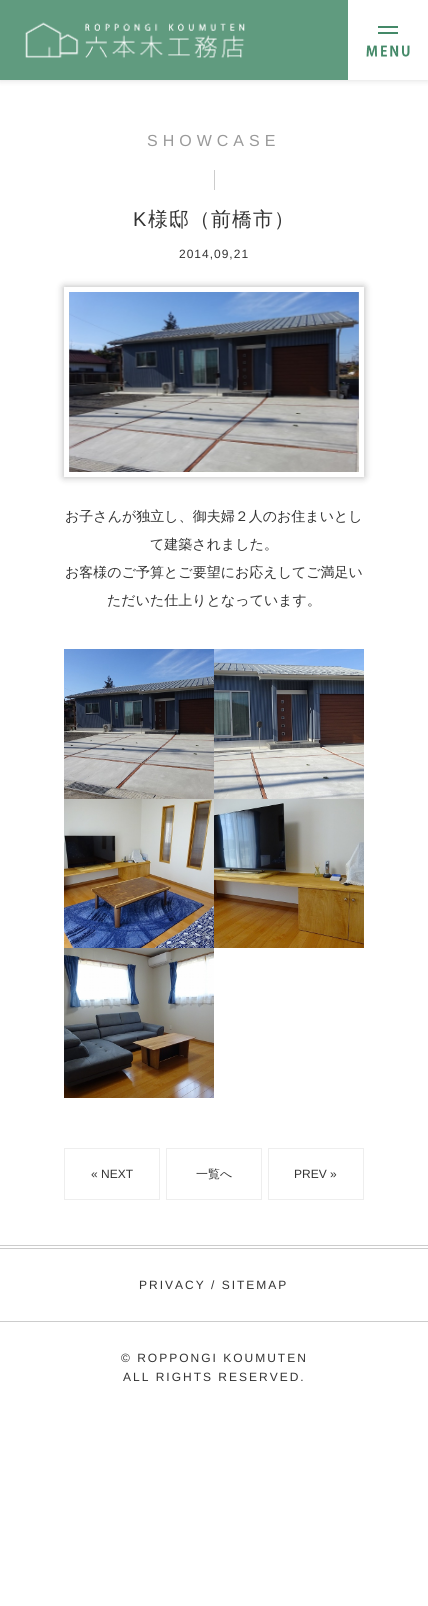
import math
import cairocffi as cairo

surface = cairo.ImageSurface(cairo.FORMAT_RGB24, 428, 1606)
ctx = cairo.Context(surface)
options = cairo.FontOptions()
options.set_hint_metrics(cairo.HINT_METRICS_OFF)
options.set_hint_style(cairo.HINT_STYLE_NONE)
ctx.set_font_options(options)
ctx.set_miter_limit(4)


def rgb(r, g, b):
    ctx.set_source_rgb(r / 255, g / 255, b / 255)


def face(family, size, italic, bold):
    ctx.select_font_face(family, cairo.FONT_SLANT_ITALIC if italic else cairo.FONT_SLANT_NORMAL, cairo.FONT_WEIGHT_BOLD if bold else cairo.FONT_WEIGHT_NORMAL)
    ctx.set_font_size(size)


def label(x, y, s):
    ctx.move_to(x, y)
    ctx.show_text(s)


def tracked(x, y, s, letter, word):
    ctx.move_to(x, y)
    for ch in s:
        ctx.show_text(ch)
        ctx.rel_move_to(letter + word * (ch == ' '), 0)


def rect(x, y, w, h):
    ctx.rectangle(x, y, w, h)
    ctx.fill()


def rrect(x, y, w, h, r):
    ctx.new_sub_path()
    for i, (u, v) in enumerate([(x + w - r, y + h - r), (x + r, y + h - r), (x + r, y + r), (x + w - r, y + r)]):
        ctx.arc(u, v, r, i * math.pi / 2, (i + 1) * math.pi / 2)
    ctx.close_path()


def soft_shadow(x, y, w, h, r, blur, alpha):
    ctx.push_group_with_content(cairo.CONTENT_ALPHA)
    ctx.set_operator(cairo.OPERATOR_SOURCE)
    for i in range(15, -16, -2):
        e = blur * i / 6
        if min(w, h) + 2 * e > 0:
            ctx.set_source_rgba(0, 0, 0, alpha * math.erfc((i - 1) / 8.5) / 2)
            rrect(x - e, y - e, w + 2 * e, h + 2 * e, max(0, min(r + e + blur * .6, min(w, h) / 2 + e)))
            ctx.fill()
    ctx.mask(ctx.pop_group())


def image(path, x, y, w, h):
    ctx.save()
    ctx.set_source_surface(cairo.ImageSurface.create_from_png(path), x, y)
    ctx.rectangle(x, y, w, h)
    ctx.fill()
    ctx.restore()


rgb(255, 255, 255)
ctx.paint()
rgb(0, 0, 0)
soft_shadow(0, 0, 428, 80, 0, 3.5, 0.15)
rgb(96, 155, 127)
rect(0, 0, 348, 80)
image('image0.png', 25, 22, 220, 36)
rgb(255, 255, 255)
rect(348, 0, 80, 80)
rgb(68, 137, 104)
rect(378, 26, 20, 2)
rect(378, 32, 20, 2)
image('image1.png', 366, 45, 44, 12)
face('Liberation Sans', 16, 0, 0)
rgb(153, 153, 153)
tracked(147, 146, 'SHOWCASE', 5, 0)
rgb(204, 204, 204)
rect(214, 170, 1, 20)
face('Liberation Sans', 20, 0, 0)
rgb(51, 51, 51)
tracked(133, 226, 'K', 1, 0)
face('WenQuanYi Zen Hei Medium', 20, 0, 0)
tracked(148, 226, '様邸（前橋市）', 1, 0)
face('Liberation Sans', 12, 0, 0)
tracked(179, 258, '2014,09,21', 1, 0)
rgb(0, 0, 0)
soft_shadow(64, 287, 300, 190, 0, 4, 0.3)
image('image2.png', 69, 292, 290, 180)
ctx.rectangle(66.5, 289.5, 295, 185)
rgb(255, 255, 255)
ctx.set_line_width(5)
ctx.stroke()
face('WenQuanYi Zen Hei Medium', 14, 0, 0)
rgb(51, 51, 51)
label(65, 521, 'お子さんが独立し、御夫婦２人のお住まいとし')
label(150, 549, 'て建築されました。')
label(65, 577, 'お客様のご予算とご要望にお応えしてご満足い')
label(107, 605, 'ただいた仕上りとなっています。')
image('image3.png', 64, 649, 150, 150)
image('image4.png', 214, 649, 150, 150)
image('image5.png', 64, 799, 150, 149)
image('image6.png', 214, 799, 150, 149)
image('image7.png', 64, 948, 150, 150)
ctx.rectangle(64.5, 1148.5, 95, 51)
rgb(238, 238, 238)
ctx.set_line_width(1)
ctx.stroke()
face('Liberation Sans', 12, 0, 0)
rgb(51, 51, 51)
label(91, 1178, '« NEXT')
ctx.rectangle(166.5, 1148.5, 95, 51)
rgb(238, 238, 238)
ctx.stroke()
face('WenQuanYi Zen Hei Medium', 12, 0, 0)
rgb(51, 51, 51)
label(196, 1178, '一覧へ')
ctx.rectangle(268.5, 1148.5, 95, 51)
rgb(238, 238, 238)
ctx.stroke()
face('Liberation Sans', 12, 0, 0)
rgb(51, 51, 51)
label(294, 1178, 'PREV »')
rgb(204, 204, 204)
rect(0, 1245, 428, 1)
rect(0, 1248, 428, 1)
rect(0, 1321, 428, 1)
rgb(51, 51, 51)
tracked(139, 1289, 'PRIVACY / SITEMAP', 2, 0)
tracked(121, 1362, '© ROPPONGI KOUMUTEN', 2, 0)
tracked(123, 1381, 'ALL RIGHTS RESERVED.', 2, 0)
surface.write_to_png('render.png')
